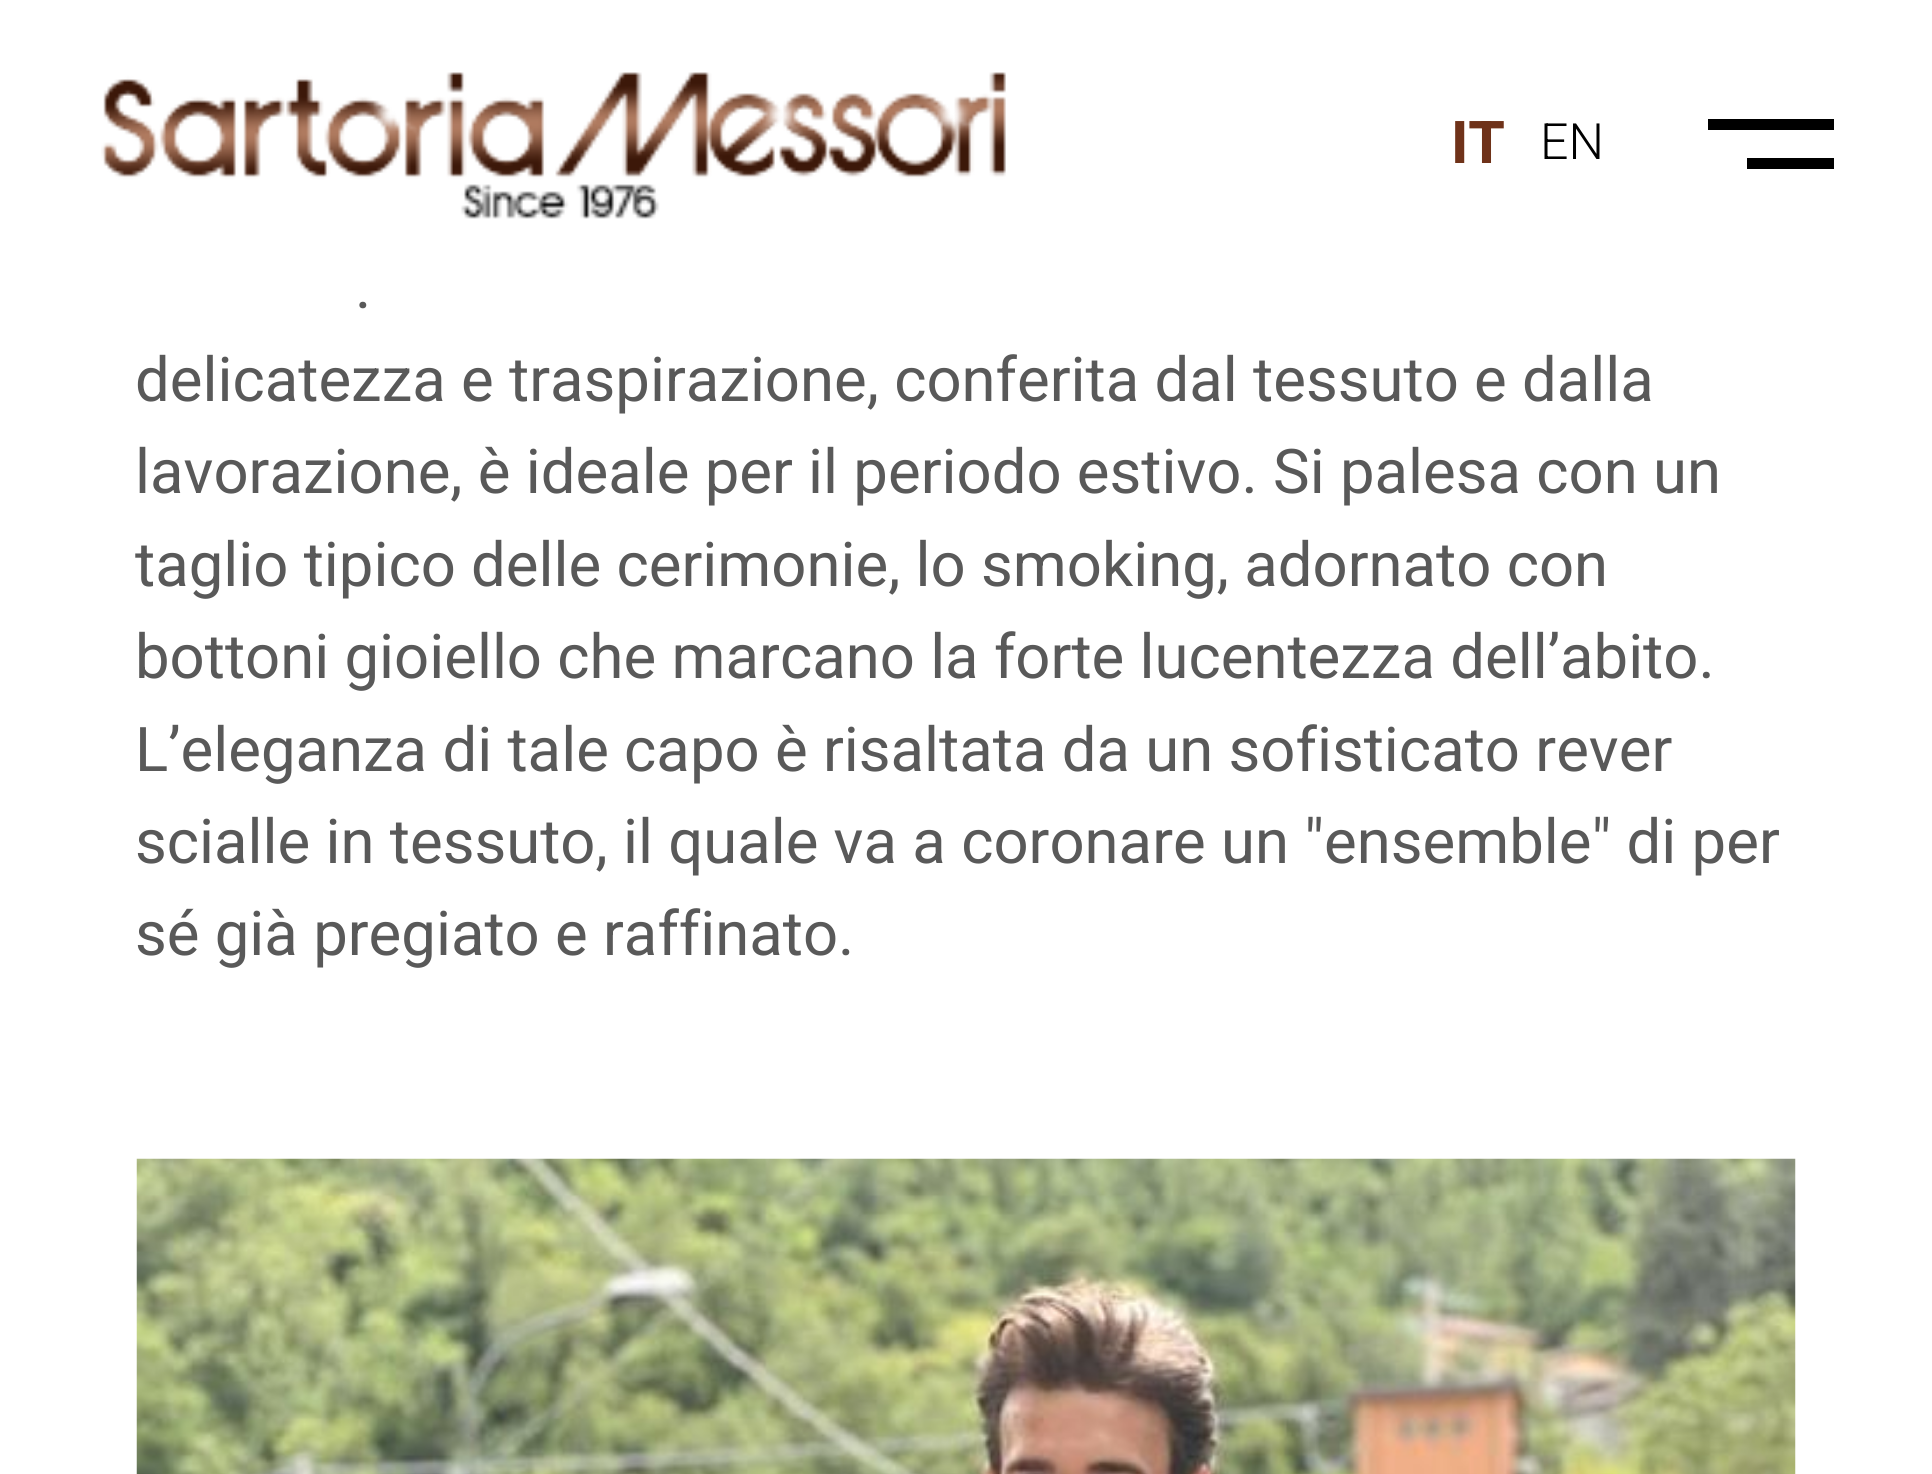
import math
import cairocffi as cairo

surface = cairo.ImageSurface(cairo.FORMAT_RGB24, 1932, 1474)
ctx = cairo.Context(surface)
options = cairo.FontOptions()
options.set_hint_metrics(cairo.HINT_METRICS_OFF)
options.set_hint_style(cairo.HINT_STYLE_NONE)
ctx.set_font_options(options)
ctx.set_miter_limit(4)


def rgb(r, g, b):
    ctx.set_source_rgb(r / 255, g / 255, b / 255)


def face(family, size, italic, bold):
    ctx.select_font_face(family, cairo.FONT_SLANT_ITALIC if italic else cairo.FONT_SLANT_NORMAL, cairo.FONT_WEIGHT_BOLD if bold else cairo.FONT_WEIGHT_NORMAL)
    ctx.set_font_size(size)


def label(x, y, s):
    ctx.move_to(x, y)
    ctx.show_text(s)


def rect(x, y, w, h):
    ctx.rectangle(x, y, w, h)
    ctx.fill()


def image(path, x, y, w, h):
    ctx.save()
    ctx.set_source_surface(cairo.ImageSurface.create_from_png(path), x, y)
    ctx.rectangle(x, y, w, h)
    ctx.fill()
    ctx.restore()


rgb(255, 255, 255)
ctx.paint()
image('image0.png', 101, 72, 905, 147)
face('Heebo', 59, 0, 1)
rgb(111, 50, 25)
label(1451, 163, 'IT')
face('Heebo Light', 50, 0, 0)
rgb(0, 0, 0)
label(1540, 159, 'EN')
rect(1708, 119, 126, 11)
rect(1747, 158, 87, 11)
face('Heebo', 61.6, 0, 0)
rgb(89, 89, 89)
label(355, 308, '.')
label(135, 401, 'delicatezza e traspirazione, conferita dal tessuto e dalla')
label(135, 493, 'lavorazione, è ideale per il periodo estivo. Si palesa con un')
label(135, 586, 'taglio tipico delle cerimonie, lo smoking, adornato con')
label(135, 678, 'bottoni gioiello che marcano la forte lucentezza dell’abito.')
label(135, 771, 'L’eleganza di tale capo è risaltata da un sofisticato rever')
label(135, 863, 'scialle in tessuto, il quale va a coronare un "ensemble" di per')
label(135, 955, 'sé già pregiato e raffinato.')
image('image1.png', 136, 1158, 1660, 316)
surface.write_to_png('render.png')
